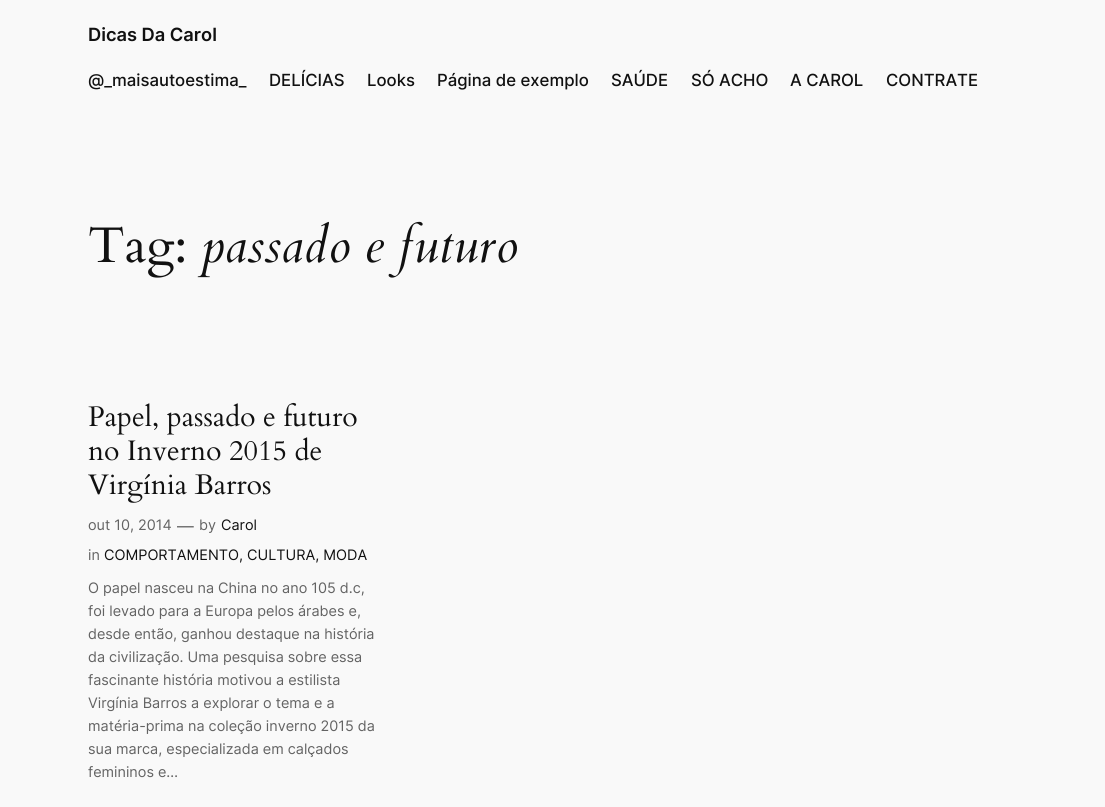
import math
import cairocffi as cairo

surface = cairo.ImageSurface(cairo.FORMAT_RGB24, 1105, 807)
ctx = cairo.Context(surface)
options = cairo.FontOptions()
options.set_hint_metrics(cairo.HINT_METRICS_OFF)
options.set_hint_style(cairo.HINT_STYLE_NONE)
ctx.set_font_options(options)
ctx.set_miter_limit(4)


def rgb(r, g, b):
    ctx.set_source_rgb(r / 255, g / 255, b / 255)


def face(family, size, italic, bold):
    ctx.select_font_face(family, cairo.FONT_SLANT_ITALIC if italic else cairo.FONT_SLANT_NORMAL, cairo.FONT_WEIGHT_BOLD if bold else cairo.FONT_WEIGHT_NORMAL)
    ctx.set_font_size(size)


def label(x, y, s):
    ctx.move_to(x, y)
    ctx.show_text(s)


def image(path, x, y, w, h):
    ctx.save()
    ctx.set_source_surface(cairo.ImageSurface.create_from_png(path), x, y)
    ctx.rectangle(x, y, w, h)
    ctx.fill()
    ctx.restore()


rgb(249, 249, 249)
ctx.paint()
face('Inter SemiBold', 18.25, 0, 0)
rgb(17, 17, 17)
label(88, 41, 'Dicas Da Carol')
face('Inter Medium', 16.75, 0, 0)
label(88, 86, '@_maisautoestima_')
label(269, 86, 'DELÍCIAS')
label(367, 86, 'Looks')
label(437, 86, 'Página de exemplo')
label(611, 86, 'SAÚDE')
label(691, 86, 'SÓ ACHO')
label(790, 86, 'A CAROL')
label(886, 86, 'CONTRATE')
image('image0.png', 89, 226, 95, 52)
face('Cardo', 50, 1, 0)
label(201, 262, 'passado e futuro')
image('image1.png', 88, 402, 269, 33)
image('image2.png', 88, 437, 233, 24)
image('image3.png', 88, 474, 183, 29)
face('Inter', 14.4, 0, 0)
rgb(99, 99, 99)
label(88, 530, 'out 10, 2014')
face('Inter', 16.75, 0, 0)
label(177, 532, '—')
face('Inter', 14.4, 0, 0)
label(199, 530, 'by')
rgb(17, 17, 17)
label(221, 530, 'Carol')
rgb(99, 99, 99)
label(88, 560, 'in')
rgb(17, 17, 17)
label(104, 560, 'COMPORTAMENTO, CULTURA, MODA')
rgb(99, 99, 99)
label(88, 593, 'O papel nasceu na China no ano 105 d.c,')
label(88, 616, 'foi levado para a Europa pelos árabes e,')
label(88, 639, 'desde então, ganhou destaque na história')
label(88, 662, 'da civilização. Uma pesquisa sobre essa')
label(88, 685, 'fascinante história motivou a estilista')
label(88, 708, 'Virgínia Barros a explorar o tema e a')
label(88, 731, 'matéria-prima na coleção inverno 2015 da')
label(88, 754, 'sua marca, especializada em calçados')
label(88, 777, 'femininos e…')
surface.write_to_png('render.png')
